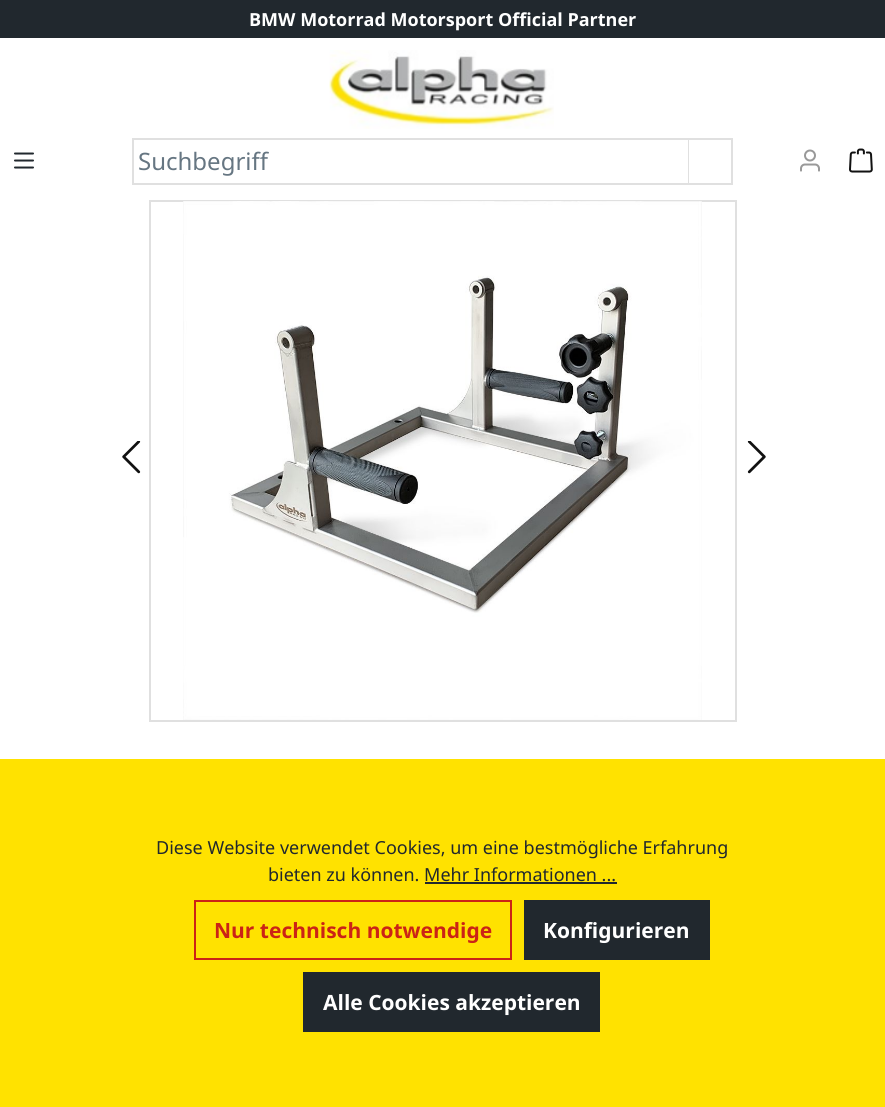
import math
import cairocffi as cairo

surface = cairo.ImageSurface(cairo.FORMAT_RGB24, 885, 1107)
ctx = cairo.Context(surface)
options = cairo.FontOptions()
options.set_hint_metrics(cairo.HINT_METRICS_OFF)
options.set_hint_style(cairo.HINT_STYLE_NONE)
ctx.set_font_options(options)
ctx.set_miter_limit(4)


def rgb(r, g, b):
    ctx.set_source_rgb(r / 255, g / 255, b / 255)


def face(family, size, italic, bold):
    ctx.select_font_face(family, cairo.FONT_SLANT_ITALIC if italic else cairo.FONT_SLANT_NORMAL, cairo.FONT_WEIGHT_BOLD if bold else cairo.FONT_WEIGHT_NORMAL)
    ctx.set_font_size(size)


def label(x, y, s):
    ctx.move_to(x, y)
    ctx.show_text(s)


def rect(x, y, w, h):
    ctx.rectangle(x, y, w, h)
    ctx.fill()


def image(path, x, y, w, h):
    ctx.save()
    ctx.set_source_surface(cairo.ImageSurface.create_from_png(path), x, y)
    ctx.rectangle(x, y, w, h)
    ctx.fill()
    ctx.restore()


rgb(255, 255, 255)
ctx.paint()
rgb(33, 40, 46)
rect(0, 0, 885, 38)
face('Noto Sans', 18, 0, 1)
rgb(255, 255, 255)
label(249, 26, 'BMW Motorrad Motorsport Official Partner')
image('image0.png', 329, 50, 225, 79)
image('image1.png', 14, 152, 20, 17)
ctx.rectangle(133, 139, 556, 45)
rgb(224, 224, 224)
ctx.stroke()
face('Noto Sans', 24, 0, 0)
rgb(102, 118, 130)
label(138, 170, 'Suchbegriff')
rgb(255, 255, 255)
rect(689, 140, 1, 43)
rgb(224, 224, 224)
rect(689, 138, 43, 2)
rect(731, 138, 2, 47)
rect(689, 183, 43, 2)
image('image2.png', 800, 149, 20, 23)
image('image3.png', 849, 148, 24, 25)
ctx.rectangle(150, 201, 586, 520)
ctx.stroke()
image('image4.png', 183, 201, 519, 519)
image('image5.png', 122, 441, 19, 33)
image('image6.png', 747, 441, 19, 33)
rgb(255, 226, 0)
rect(0, 759, 885, 348)
face('Noto Sans', 18, 0, 0)
rgb(33, 40, 46)
label(156, 854, 'Diese Website verwendet Cookies, um eine bestmögliche Erfahrung')
label(268, 881, 'bieten zu können. Mehr Informationen ...')
rect(425, 882, 192, 2)
ctx.rectangle(195, 901, 316, 58)
rgb(203, 35, 22)
ctx.stroke()
face('Noto Sans', 21, 0, 1)
label(214, 938, 'Nur technisch notwendige')
rgb(33, 40, 46)
rect(524, 900, 186, 60)
rgb(255, 255, 255)
label(543, 938, 'Konfigurieren')
rgb(33, 40, 46)
rect(303, 972, 297, 60)
rgb(255, 255, 255)
label(323, 1010, 'Alle Cookies akzeptieren')
surface.write_to_png('render.png')
